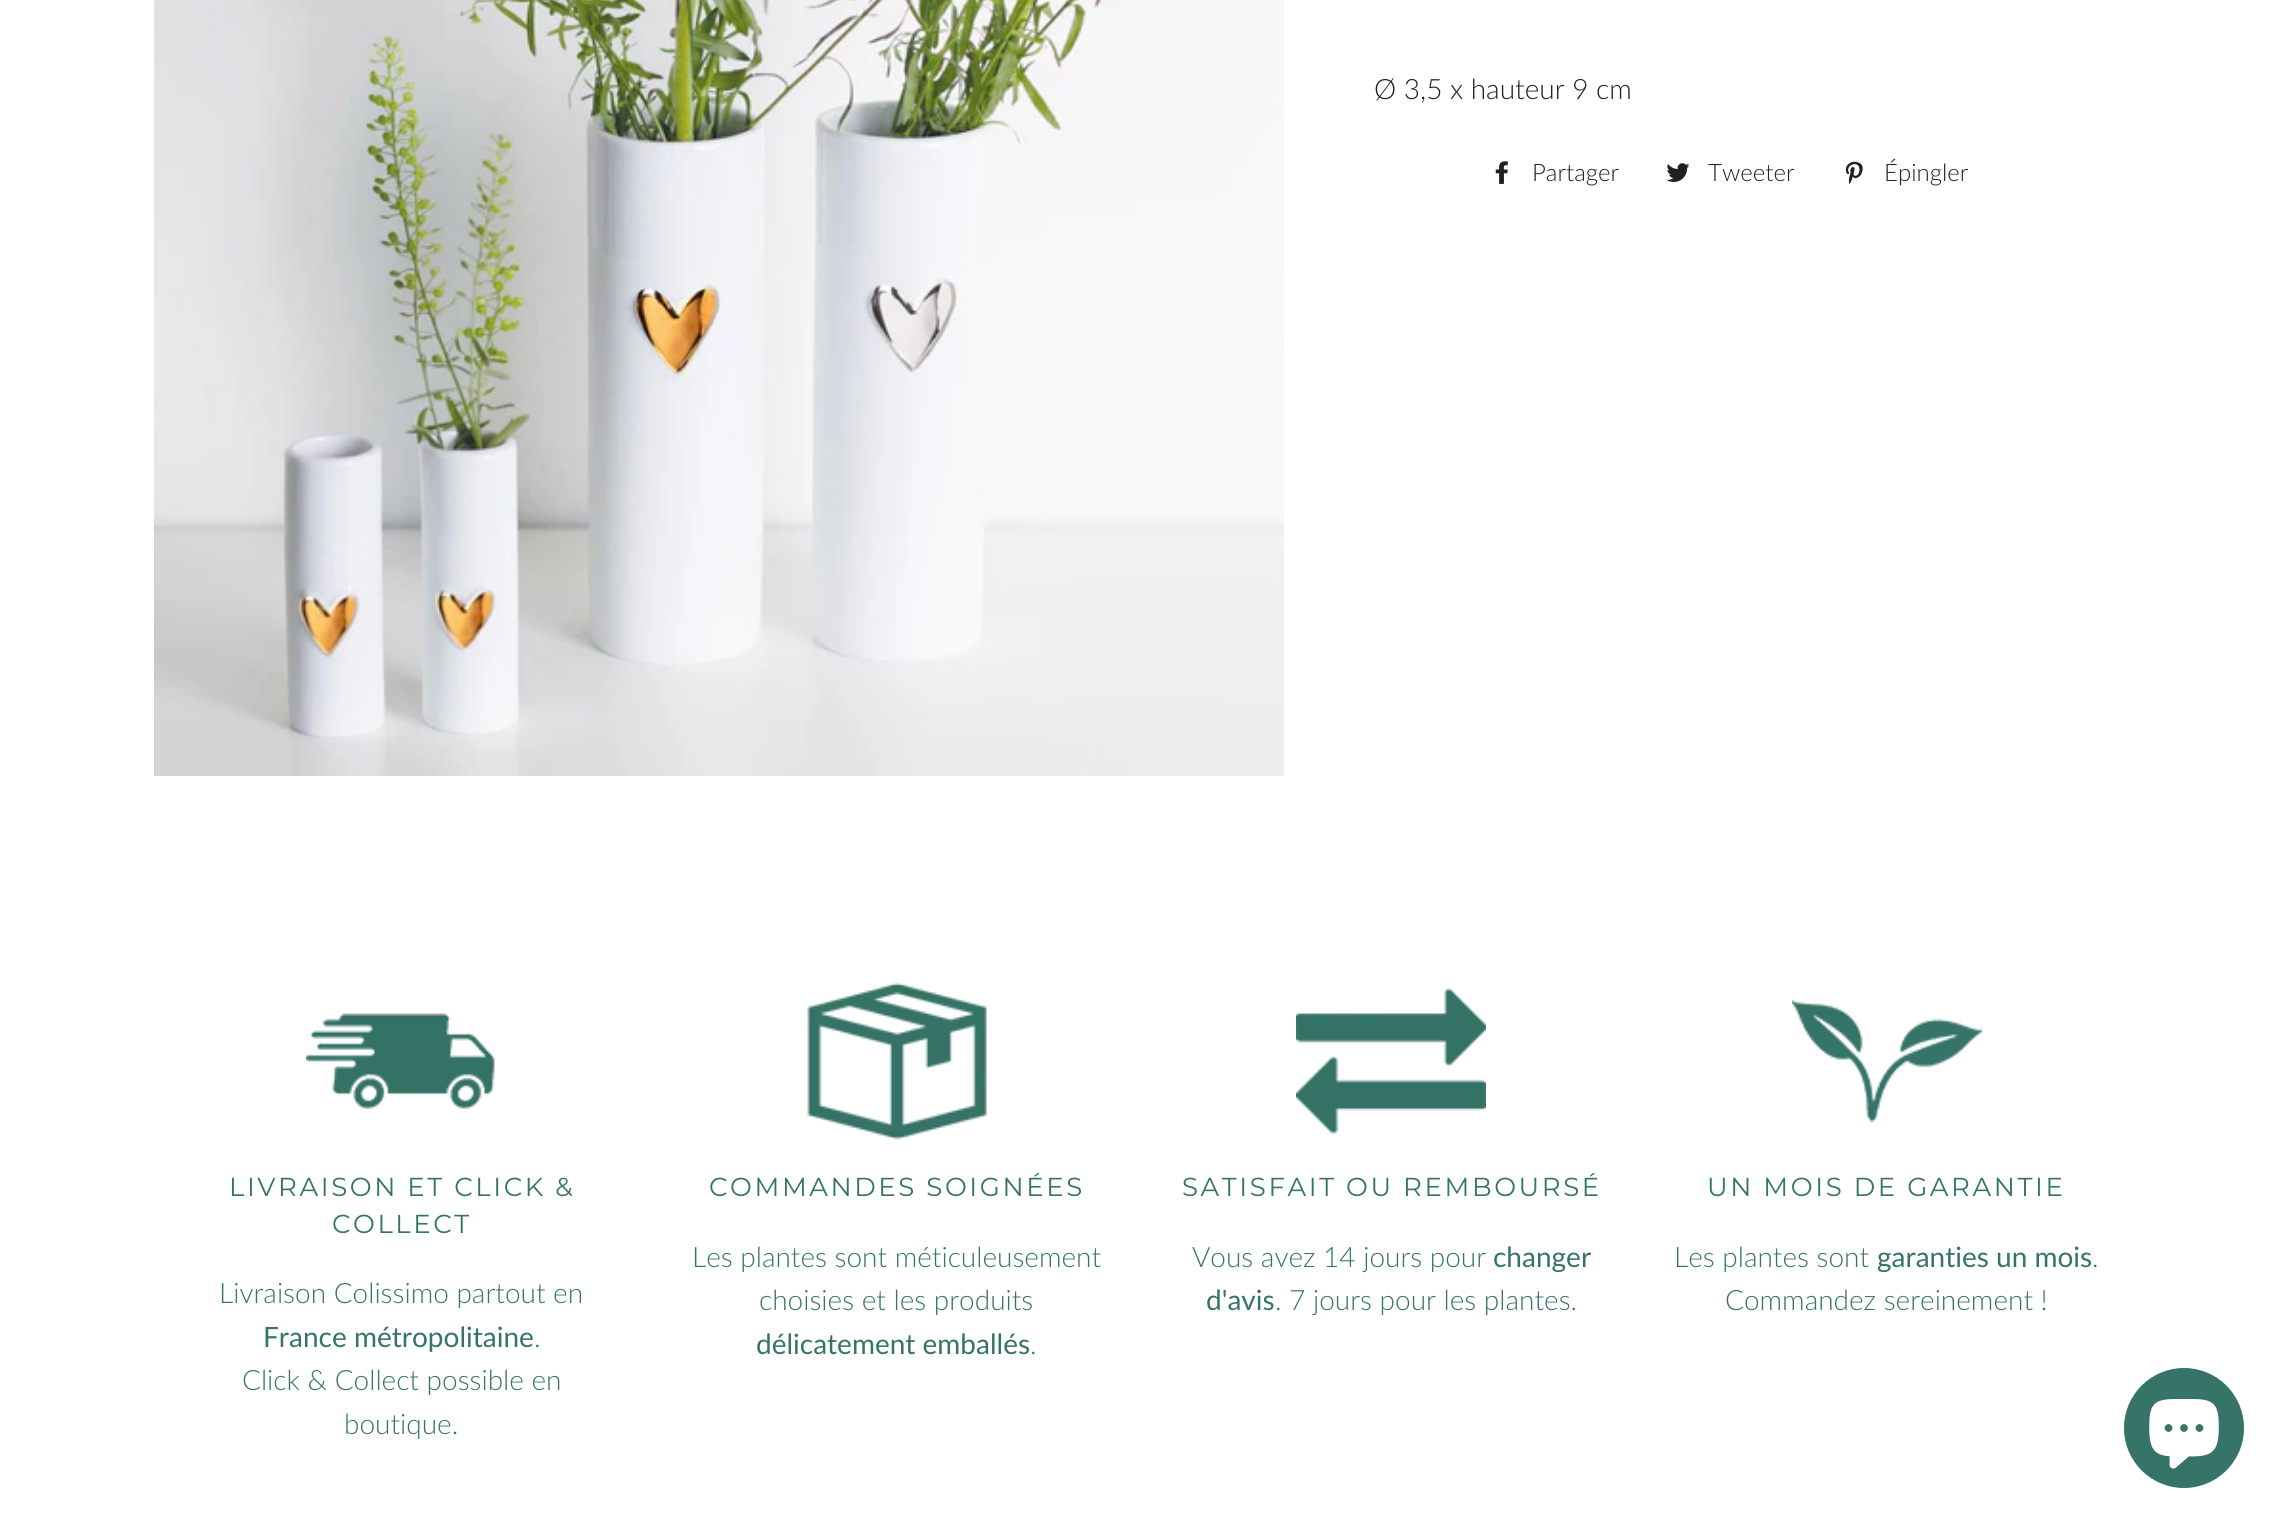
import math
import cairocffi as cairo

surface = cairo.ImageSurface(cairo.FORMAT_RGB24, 2287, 1530)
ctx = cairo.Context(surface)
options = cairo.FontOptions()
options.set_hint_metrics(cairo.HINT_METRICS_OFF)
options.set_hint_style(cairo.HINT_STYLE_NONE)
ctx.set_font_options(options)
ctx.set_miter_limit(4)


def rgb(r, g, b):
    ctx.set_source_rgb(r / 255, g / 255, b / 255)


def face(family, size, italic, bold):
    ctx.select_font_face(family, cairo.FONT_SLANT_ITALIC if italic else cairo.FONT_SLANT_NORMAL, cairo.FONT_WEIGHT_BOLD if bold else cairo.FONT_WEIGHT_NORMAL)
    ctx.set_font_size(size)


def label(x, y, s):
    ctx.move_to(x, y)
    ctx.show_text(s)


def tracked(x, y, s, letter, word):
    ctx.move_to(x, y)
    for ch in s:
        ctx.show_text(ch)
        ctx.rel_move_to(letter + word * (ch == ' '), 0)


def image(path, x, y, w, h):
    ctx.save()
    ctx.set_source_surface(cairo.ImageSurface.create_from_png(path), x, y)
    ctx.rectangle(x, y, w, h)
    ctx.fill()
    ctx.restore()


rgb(255, 255, 255)
ctx.paint()
image('image0.png', 154, 0, 1130, 776)
face('Lato Light', 28, 0, 0)
rgb(31, 32, 33)
label(1374, 99, 'Ø 3,5 x hauteur 9 cm')
image('image1.png', 1495, 161, 13, 23)
face('Lato Light', 24, 0, 0)
label(1532, 181, 'Partager')
image('image2.png', 1666, 163, 24, 19)
label(1708, 181, 'Tweeter')
image('image3.png', 1845, 161, 18, 23)
label(1884, 181, 'Épingler')
image('image4.png', 306, 1013, 189, 96)
face('Montserrat', 26, 0, 0)
rgb(54, 116, 103)
tracked(229, 1196, 'LIVRAISON ET CLICK &', 2.6, 0)
tracked(332, 1233, 'COLLECT', 2.6, 0)
face('Lato Light', 28, 0, 0)
label(219, 1303, 'Livraison Colissimo partout en')
face('Lato', 28, 0, 0)
label(263, 1347, 'France métropolitaine')
face('Lato Light', 28, 0, 0)
label(534, 1347, '.')
label(242, 1390, 'Click & Collect possible en')
label(344, 1434, 'boutique.')
image('image5.png', 807, 982, 180, 158)
face('Montserrat', 26, 0, 0)
tracked(709, 1196, 'COMMANDES SOIGNÉES', 2.6, 0)
face('Lato Light', 28, 0, 0)
label(692, 1267, 'Les plantes sont méticuleusement')
label(759, 1310, 'choisies et les produits')
face('Lato', 28, 0, 0)
label(756, 1354, 'délicatement emballés')
face('Lato Light', 28, 0, 0)
label(1030, 1354, '.')
image('image6.png', 1296, 988, 190, 146)
face('Montserrat', 26, 0, 0)
tracked(1182, 1196, 'SATISFAIT OU REMBOURSÉ', 2.6, 0)
face('Lato Light', 28, 0, 0)
label(1192, 1267, 'Vous avez 14 jours pour')
face('Lato', 28, 0, 0)
label(1493, 1267, 'changer')
label(1206, 1310, 'd\'avis')
face('Lato Light', 28, 0, 0)
label(1275, 1310, '. 7 jours pour les plantes.')
image('image7.png', 1792, 999, 190, 124)
face('Montserrat', 26, 0, 0)
tracked(1707, 1196, 'UN MOIS DE GARANTIE', 2.6, 0)
face('Lato Light', 28, 0, 0)
label(1674, 1267, 'Les plantes sont')
face('Lato', 28, 0, 0)
label(1877, 1267, 'garanties un mois')
face('Lato Light', 28, 0, 0)
label(2092, 1267, '.')
label(1725, 1310, 'Commandez sereinement !')
ctx.new_path()
ctx.arc(2184, 1428, 60, 0, 2 * math.pi)
ctx.fill()
image('image8.png', 2149, 1399, 70, 70)
surface.write_to_png('render.png')
